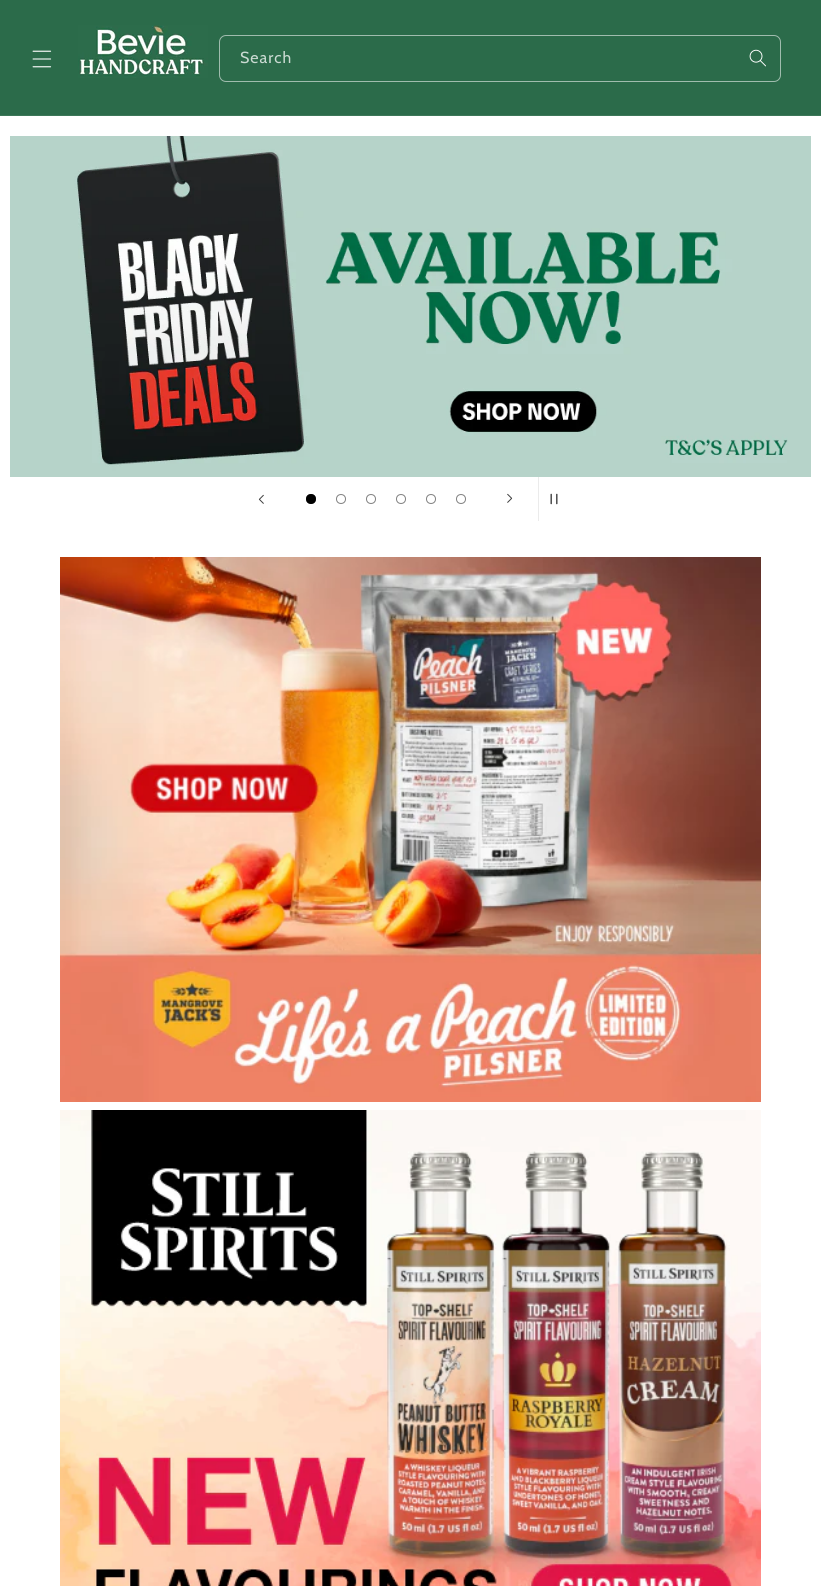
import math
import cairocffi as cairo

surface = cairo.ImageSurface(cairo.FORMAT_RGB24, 821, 1586)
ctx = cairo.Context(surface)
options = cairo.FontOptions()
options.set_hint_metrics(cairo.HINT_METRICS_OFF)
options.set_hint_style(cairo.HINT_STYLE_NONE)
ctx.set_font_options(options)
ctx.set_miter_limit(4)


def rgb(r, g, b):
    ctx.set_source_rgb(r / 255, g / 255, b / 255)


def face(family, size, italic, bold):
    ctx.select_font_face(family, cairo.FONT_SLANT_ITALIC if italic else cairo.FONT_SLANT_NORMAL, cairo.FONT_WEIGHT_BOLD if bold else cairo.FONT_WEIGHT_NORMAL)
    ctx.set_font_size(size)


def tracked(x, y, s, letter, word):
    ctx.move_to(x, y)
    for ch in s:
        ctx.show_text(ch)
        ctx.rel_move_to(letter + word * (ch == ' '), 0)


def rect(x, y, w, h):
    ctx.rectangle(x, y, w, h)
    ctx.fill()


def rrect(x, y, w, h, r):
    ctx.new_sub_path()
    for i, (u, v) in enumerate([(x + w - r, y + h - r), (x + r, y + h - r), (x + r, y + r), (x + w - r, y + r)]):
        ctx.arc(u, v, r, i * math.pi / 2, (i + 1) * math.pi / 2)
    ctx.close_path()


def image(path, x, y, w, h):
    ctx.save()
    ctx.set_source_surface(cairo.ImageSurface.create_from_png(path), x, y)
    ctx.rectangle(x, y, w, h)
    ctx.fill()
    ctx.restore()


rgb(255, 255, 255)
ctx.paint()
rgb(43, 107, 74)
rect(0, 0, 821, 115)
rgb(60, 119, 88)
rect(0, 115, 821, 1)
image('image0.png', 32, 50, 20, 18)
image('image1.png', 78, 25, 130, 53)
image('image2.png', 749, 49, 17, 18)
rrect(219.5, 35.5, 561, 46, 6.5)
rgb(160, 188, 174)
ctx.set_line_width(1)
ctx.stroke()
face('Cabin', 16, 0, 0)
rgb(202, 218, 210)
tracked(240, 63, 'Search', 1, 0)
image('image3.png', 10, 136, 801, 341)
image('image4.png', 258, 494, 6, 10)
rgb(0, 0, 0)
ctx.arc(311, 499, 5, 0, 2 * math.pi)
ctx.fill()
ctx.arc(311, 499, 4.5, 0, 2 * math.pi)
ctx.set_source_rgba(0, 0, 0, 0.5)
ctx.stroke()
ctx.arc(341, 499, 4.5, 0, 2 * math.pi)
rgb(128, 128, 128)
ctx.stroke()
ctx.arc(371, 499, 4.5, 0, 2 * math.pi)
ctx.stroke()
ctx.arc(401, 499, 4.5, 0, 2 * math.pi)
ctx.stroke()
ctx.arc(431, 499, 4.5, 0, 2 * math.pi)
ctx.stroke()
ctx.arc(461, 499, 4.5, 0, 2 * math.pi)
ctx.stroke()
image('image5.png', 507, 493, 6, 10)
rgb(235, 235, 235)
rect(538, 477, 1, 44)
image('image6.png', 550, 493, 8, 12)
image('image7.png', 60, 557, 701, 545)
image('image8.png', 60, 1110, 701, 476)
surface.write_to_png('render.png')
